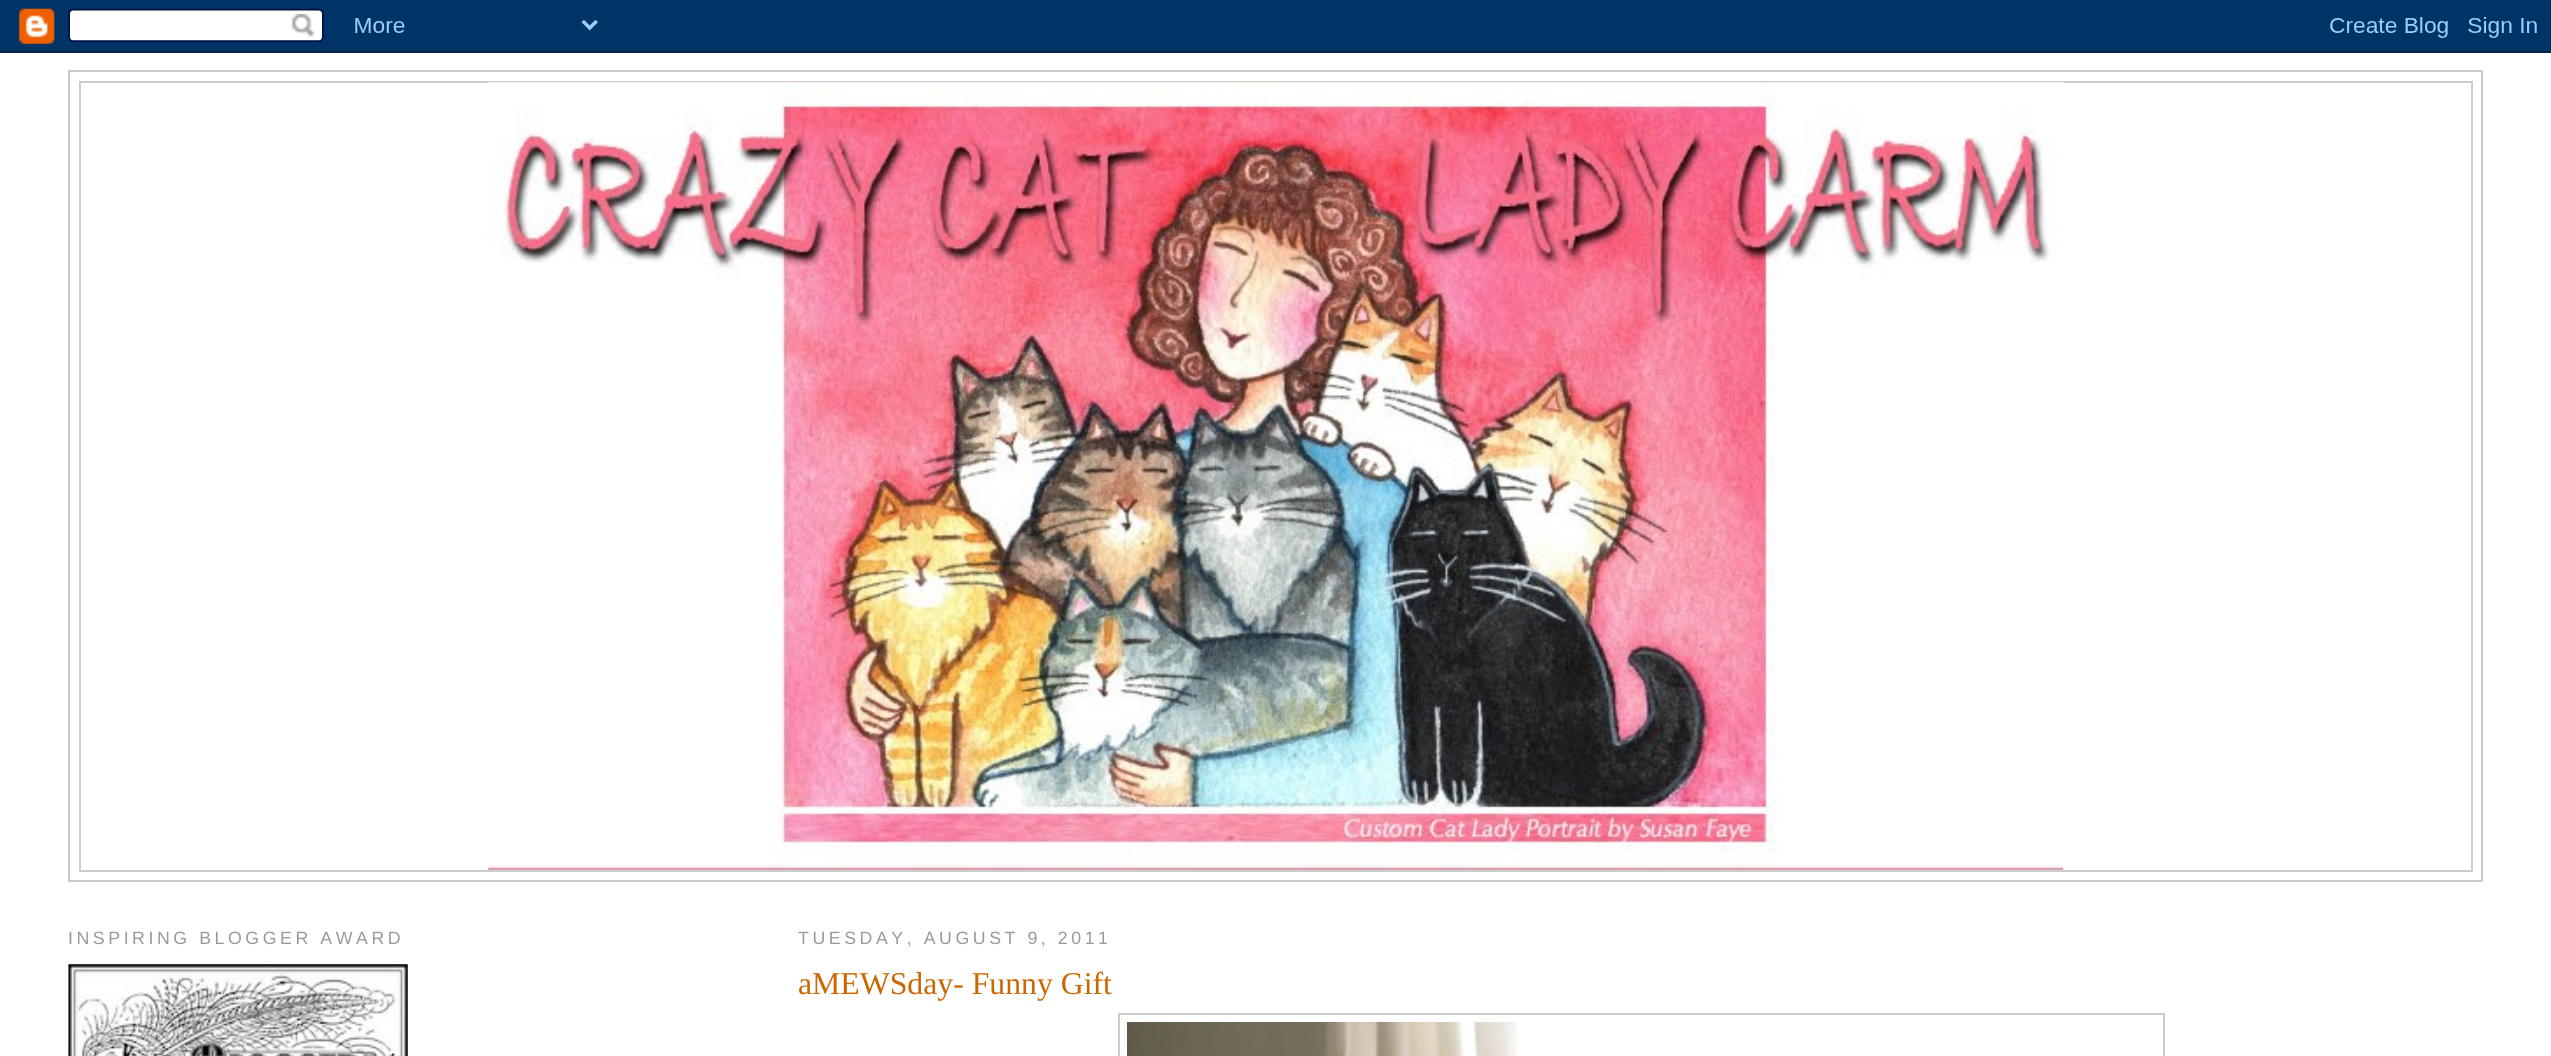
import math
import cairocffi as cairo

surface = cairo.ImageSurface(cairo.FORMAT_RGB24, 2551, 1056)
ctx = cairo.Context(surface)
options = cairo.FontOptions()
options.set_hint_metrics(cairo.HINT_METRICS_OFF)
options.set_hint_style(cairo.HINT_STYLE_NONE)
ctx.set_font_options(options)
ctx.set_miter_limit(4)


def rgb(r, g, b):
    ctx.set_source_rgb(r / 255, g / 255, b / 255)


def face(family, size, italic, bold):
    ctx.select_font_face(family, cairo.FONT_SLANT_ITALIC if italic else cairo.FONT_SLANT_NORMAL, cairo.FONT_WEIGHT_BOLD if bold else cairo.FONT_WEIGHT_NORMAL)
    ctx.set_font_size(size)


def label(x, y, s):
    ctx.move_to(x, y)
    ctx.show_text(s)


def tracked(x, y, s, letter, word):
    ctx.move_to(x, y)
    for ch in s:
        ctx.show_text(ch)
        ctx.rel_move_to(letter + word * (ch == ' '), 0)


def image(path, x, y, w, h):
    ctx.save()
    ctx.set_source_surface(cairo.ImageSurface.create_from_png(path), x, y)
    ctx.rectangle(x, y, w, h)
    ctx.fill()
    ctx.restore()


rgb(255, 255, 255)
ctx.paint()
image('image0.png', 0, 0, 2551, 53)
ctx.rectangle(69, 71, 2413, 810)
rgb(204, 204, 204)
ctx.stroke()
ctx.rectangle(80, 82, 2392, 789)
ctx.stroke()
image('image1.png', 488, 82, 1576, 788)
face('Liberation Sans', 17.75, 0, 0)
rgb(153, 153, 153)
tracked(68, 944, 'INSPIRING BLOGGER AWARD', 3.55, 0)
image('image2.png', 68, 964, 340, 92)
tracked(798, 944, 'TUESDAY, AUGUST 9, 2011', 3.55, 0)
face('Liberation Serif', 31.75, 0, 0)
rgb(204, 102, 0)
label(798, 994, 'aMEWSday- Funny Gift')
ctx.rectangle(1119, 1014, 1045, 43)
rgb(204, 204, 204)
ctx.stroke()
image('image3.png', 1127, 1022, 391, 34)
surface.write_to_png('render.png')
